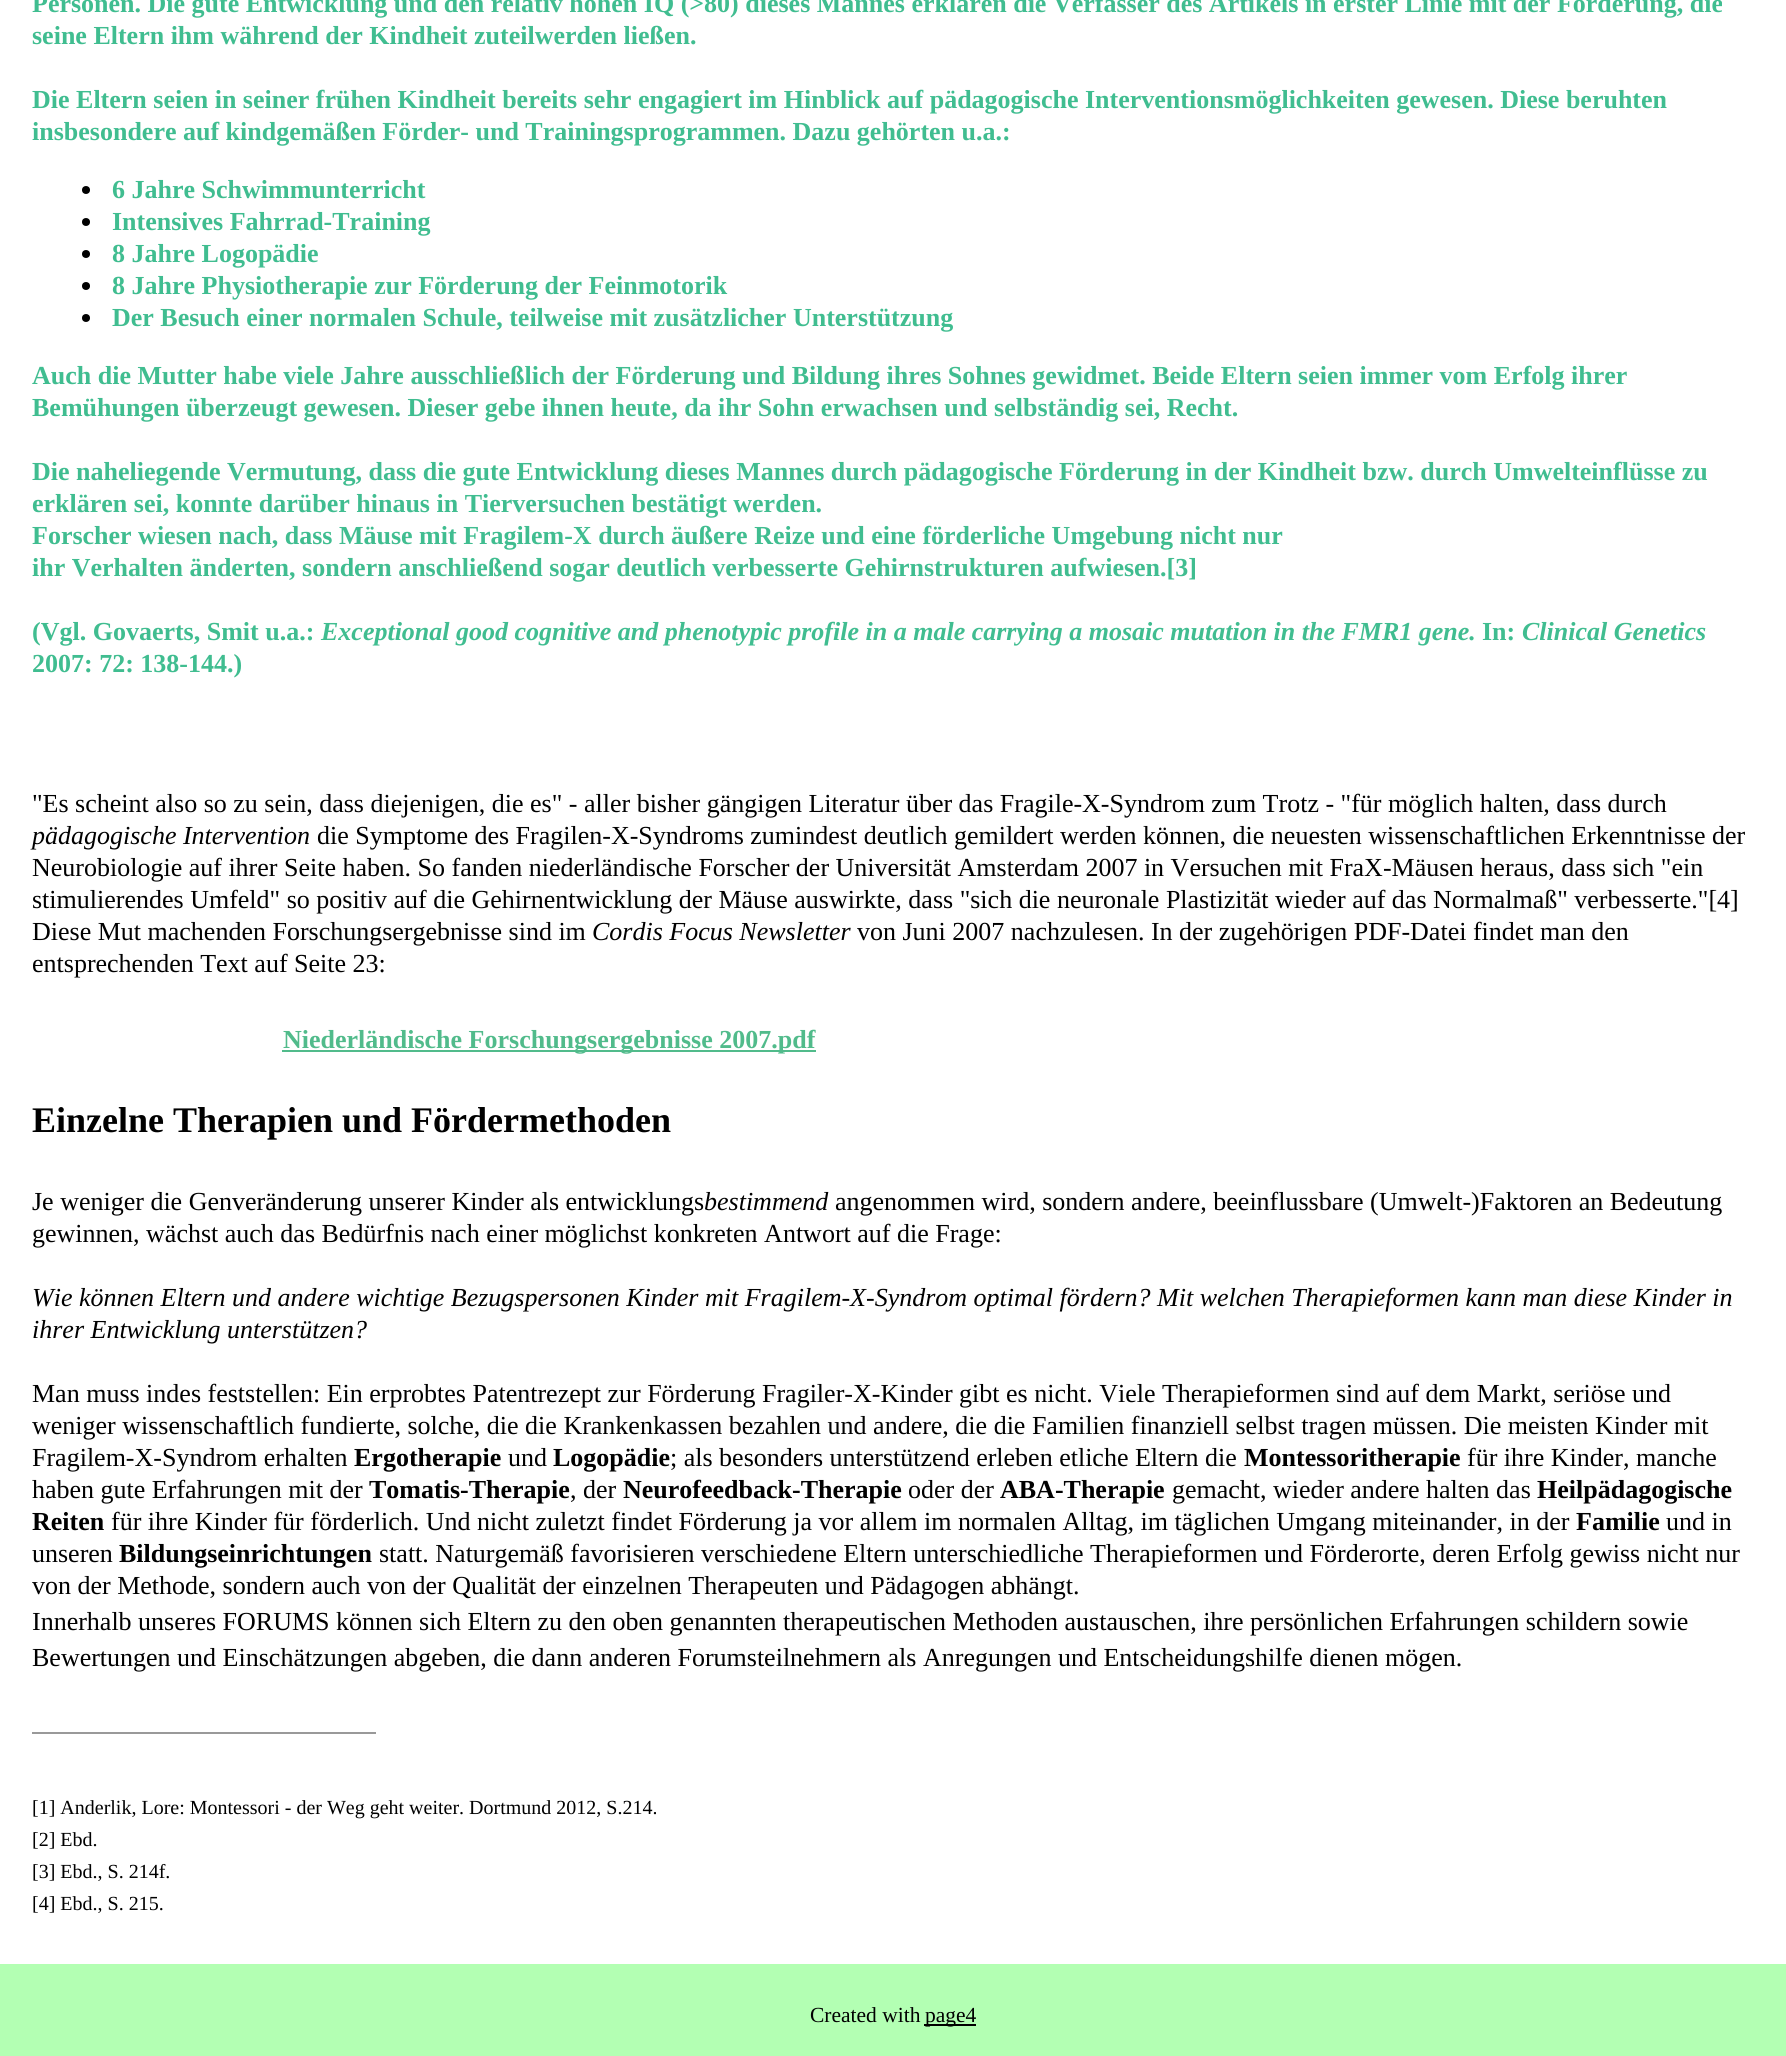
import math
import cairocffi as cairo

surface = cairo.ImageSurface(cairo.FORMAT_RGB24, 1786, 2056)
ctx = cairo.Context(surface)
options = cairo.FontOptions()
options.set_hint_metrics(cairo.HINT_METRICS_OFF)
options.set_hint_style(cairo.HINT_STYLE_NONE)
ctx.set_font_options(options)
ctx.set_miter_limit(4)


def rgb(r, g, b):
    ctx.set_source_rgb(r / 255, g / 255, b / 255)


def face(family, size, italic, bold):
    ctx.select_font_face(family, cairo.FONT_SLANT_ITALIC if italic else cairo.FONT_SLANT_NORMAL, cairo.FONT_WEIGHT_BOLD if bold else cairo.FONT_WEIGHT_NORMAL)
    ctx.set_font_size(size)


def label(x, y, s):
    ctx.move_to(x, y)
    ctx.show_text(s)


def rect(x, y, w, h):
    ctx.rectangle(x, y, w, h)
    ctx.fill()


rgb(179, 255, 179)
ctx.paint()
rgb(255, 255, 255)
rect(0, 0, 1786, 1964)
face('Liberation Serif', 26, 0, 1)
rgb(64, 189, 144)
label(32, 12, 'Personen. Die gute Entwicklung und den relativ hohen IQ (>80) dieses Mannes erklären die Verfasser des Artikels in erster Linie mit der Förderung, die')
label(32, 44, 'seine Eltern ihm während der Kindheit zuteilwerden ließen.')
label(32, 108, 'Die Eltern seien in seiner frühen Kindheit bereits sehr engagiert im Hinblick auf pädagogische Interventionsmöglichkeiten gewesen. Diese beruhten')
label(32, 140, 'insbesondere auf kindgemäßen Förder- und Trainingsprogrammen. Dazu gehörten u.a.:')
rgb(0, 0, 0)
ctx.new_path()
ctx.arc(86, 190, 4, 0, 2 * math.pi)
ctx.fill()
rgb(64, 189, 144)
label(112, 198, '6 Jahre Schwimmunterricht')
rgb(0, 0, 0)
ctx.new_path()
ctx.arc(86, 222, 4, 0, 2 * math.pi)
ctx.fill()
rgb(64, 189, 144)
label(112, 230, 'Intensives Fahrrad-Training')
rgb(0, 0, 0)
ctx.new_path()
ctx.arc(86, 254, 4, 0, 2 * math.pi)
ctx.fill()
rgb(64, 189, 144)
label(112, 262, '8 Jahre Logopädie')
rgb(0, 0, 0)
ctx.new_path()
ctx.arc(86, 286, 4, 0, 2 * math.pi)
ctx.fill()
rgb(64, 189, 144)
label(112, 294, '8 Jahre Physiotherapie zur Förderung der Feinmotorik')
rgb(0, 0, 0)
ctx.new_path()
ctx.arc(86, 318, 4, 0, 2 * math.pi)
ctx.fill()
rgb(64, 189, 144)
label(112, 326, 'Der Besuch einer normalen Schule, teilweise mit zusätzlicher Unterstützung')
label(32, 384, 'Auch die Mutter habe viele Jahre ausschließlich der Förderung und Bildung ihres Sohnes gewidmet. Beide Eltern seien immer vom Erfolg ihrer')
label(32, 416, 'Bemühungen überzeugt gewesen. Dieser gebe ihnen heute, da ihr Sohn erwachsen und selbständig sei, Recht.')
label(32, 480, 'Die naheliegende Vermutung, dass die gute Entwicklung dieses Mannes durch pädagogische Förderung in der Kindheit bzw. durch Umwelteinflüsse zu')
label(32, 512, 'erklären sei, konnte darüber hinaus in Tierversuchen bestätigt werden.')
label(32, 544, 'Forscher wiesen nach, dass Mäuse mit Fragilem-X durch äußere Reize und eine förderliche Umgebung nicht nur')
label(32, 576, 'ihr Verhalten änderten, sondern anschließend sogar deutlich verbesserte Gehirnstrukturen aufwiesen.[3]')
label(32, 640, '(Vgl. Govaerts, Smit u.a.:')
face('Liberation Serif', 26, 1, 1)
label(321, 640, 'Exceptional good cognitive and phenotypic profile in a male carrying a mosaic mutation in the FMR1 gene.')
face('Liberation Serif', 26, 0, 1)
label(1482, 640, 'In:')
face('Liberation Serif', 26, 1, 1)
label(1522, 640, 'Clinical Genetics')
face('Liberation Serif', 26, 0, 1)
label(32, 672, '2007: 72: 138-144.)')
face('Liberation Serif', 26, 0, 0)
rgb(0, 0, 0)
label(32, 812, '"Es scheint also so zu sein, dass diejenigen, die es" - aller bisher gängigen Literatur über das Fragile-X-Syndrom zum Trotz - "für möglich halten, dass durch')
face('Liberation Serif', 26, 1, 0)
label(32, 844, 'pädagogische Intervention')
face('Liberation Serif', 26, 0, 0)
label(317, 844, 'die Symptome des Fragilen-X-Syndroms zumindest deutlich gemildert werden können, die neuesten wissenschaftlichen Erkenntnisse der')
label(32, 876, 'Neurobiologie auf ihrer Seite haben. So fanden niederländische Forscher der Universität Amsterdam 2007 in Versuchen mit FraX-Mäusen heraus, dass sich "ein')
label(32, 908, 'stimulierendes Umfeld" so positiv auf die Gehirnentwicklung der Mäuse auswirkte, dass "sich die neuronale Plastizität wieder auf das Normalmaß" verbesserte."[4]')
label(32, 940, 'Diese Mut machenden Forschungsergebnisse sind im')
face('Liberation Serif', 26, 1, 0)
label(592, 940, 'Cordis Focus Newsletter')
face('Liberation Serif', 26, 0, 0)
label(857, 940, 'von Juni 2007 nachzulesen. In der zugehörigen PDF-Datei findet man den')
label(32, 972, 'entsprechenden Text auf Seite 23:')
rgb(81, 187, 139)
rect(282, 1050, 534, 2)
face('Liberation Serif', 26, 0, 1)
label(283, 1048, 'Niederländische Forschungsergebnisse 2007.pdf')
face('Liberation Serif', 36, 0, 1)
rgb(0, 0, 0)
label(32, 1132, 'Einzelne Therapien und Fördermethoden')
face('Liberation Serif', 26, 0, 0)
label(32, 1210, 'Je weniger die Genveränderung unserer Kinder als entwicklungs')
face('Liberation Serif', 26, 1, 0)
label(704, 1210, 'bestimmend')
face('Liberation Serif', 26, 0, 0)
label(835, 1210, 'angenommen wird, sondern andere, beeinflussbare (Umwelt-)Faktoren an Bedeutung')
label(32, 1242, 'gewinnen, wächst auch das Bedürfnis nach einer möglichst konkreten Antwort auf die Frage:')
face('Liberation Serif', 26, 1, 0)
label(32, 1306, 'Wie können Eltern und andere wichtige Bezugspersonen Kinder mit Fragilem-X-Syndrom optimal fördern? Mit welchen Therapieformen kann man diese Kinder in')
label(32, 1338, 'ihrer Entwicklung unterstützen?')
face('Liberation Serif', 26, 0, 0)
label(32, 1402, 'Man muss indes feststellen: Ein erprobtes Patentrezept zur Förderung Fragiler-X-Kinder gibt es nicht. Viele Therapieformen sind auf dem Markt, seriöse und')
label(32, 1434, 'weniger wissenschaftlich fundierte, solche, die die Krankenkassen bezahlen und andere, die die Familien finanziell selbst tragen müssen. Die meisten Kinder mit')
label(32, 1466, 'Fragilem-X-Syndrom erhalten')
face('Liberation Serif', 26, 0, 1)
label(354, 1466, 'Ergotherapie')
face('Liberation Serif', 26, 0, 0)
label(508, 1466, 'und')
face('Liberation Serif', 26, 0, 1)
label(553, 1466, 'Logopädie')
face('Liberation Serif', 26, 0, 0)
label(670, 1466, '; als besonders unterstützend erleben etliche Eltern die')
face('Liberation Serif', 26, 0, 1)
label(1244, 1466, 'Montessoritherapie')
face('Liberation Serif', 26, 0, 0)
label(1467, 1466, 'für ihre Kinder, manche')
label(32, 1498, 'haben gute Erfahrungen mit der')
face('Liberation Serif', 26, 0, 1)
label(369, 1498, 'Tomatis-Therapie')
face('Liberation Serif', 26, 0, 0)
label(570, 1498, ', der')
face('Liberation Serif', 26, 0, 1)
label(623, 1498, 'Neurofeedback-Therapie')
face('Liberation Serif', 26, 0, 0)
label(908, 1498, 'oder der')
face('Liberation Serif', 26, 0, 1)
label(1000, 1498, 'ABA-Therapie')
face('Liberation Serif', 26, 0, 0)
label(1172, 1498, 'gemacht, wieder andere halten das')
face('Liberation Serif', 26, 0, 1)
label(1537, 1498, 'Heilpädagogische')
label(32, 1530, 'Reiten')
face('Liberation Serif', 26, 0, 0)
label(111, 1530, 'für ihre Kinder für förderlich. Und nicht zuletzt findet Förderung ja vor allem im normalen Alltag, im täglichen Umgang miteinander, in der')
face('Liberation Serif', 26, 0, 1)
label(1576, 1530, 'Familie')
face('Liberation Serif', 26, 0, 0)
label(1666, 1530, 'und in')
label(32, 1562, 'unseren')
face('Liberation Serif', 26, 0, 1)
label(119, 1562, 'Bildungseinrichtungen')
face('Liberation Serif', 26, 0, 0)
label(379, 1562, 'statt. Naturgemäß favorisieren verschiedene Eltern unterschiedliche Therapieformen und Förderorte, deren Erfolg gewiss nicht nur')
label(32, 1594, 'von der Methode, sondern auch von der Qualität der einzelnen Therapeuten und Pädagogen abhängt.')
label(32, 1630, 'Innerhalb unseres FORUMS können sich Eltern zu den oben genannten therapeutischen Methoden austauschen, ihre persönlichen Erfahrungen schildern sowie')
label(32, 1666, 'Bewertungen und Einschätzungen abgeben, die dann anderen Forumsteilnehmern als Anregungen und Entscheidungshilfe dienen mögen.')
rgb(153, 153, 153)
rect(32, 1732, 344, 2)
face('Liberation Serif', 20, 0, 0)
rgb(0, 0, 0)
label(32, 1814, '[1] Anderlik, Lore: Montessori - der Weg geht weiter. Dortmund 2012, S.214.')
label(32, 1846, '[2] Ebd.')
label(32, 1878, '[3] Ebd., S. 214f.')
label(32, 1910, '[4] Ebd., S. 215.')
face('Liberation Serif', 21.5, 0, 0)
label(810, 2022, 'Created with')
rect(924, 2024, 52, 2)
label(925, 2022, 'page4')
surface.write_to_png('render.png')
